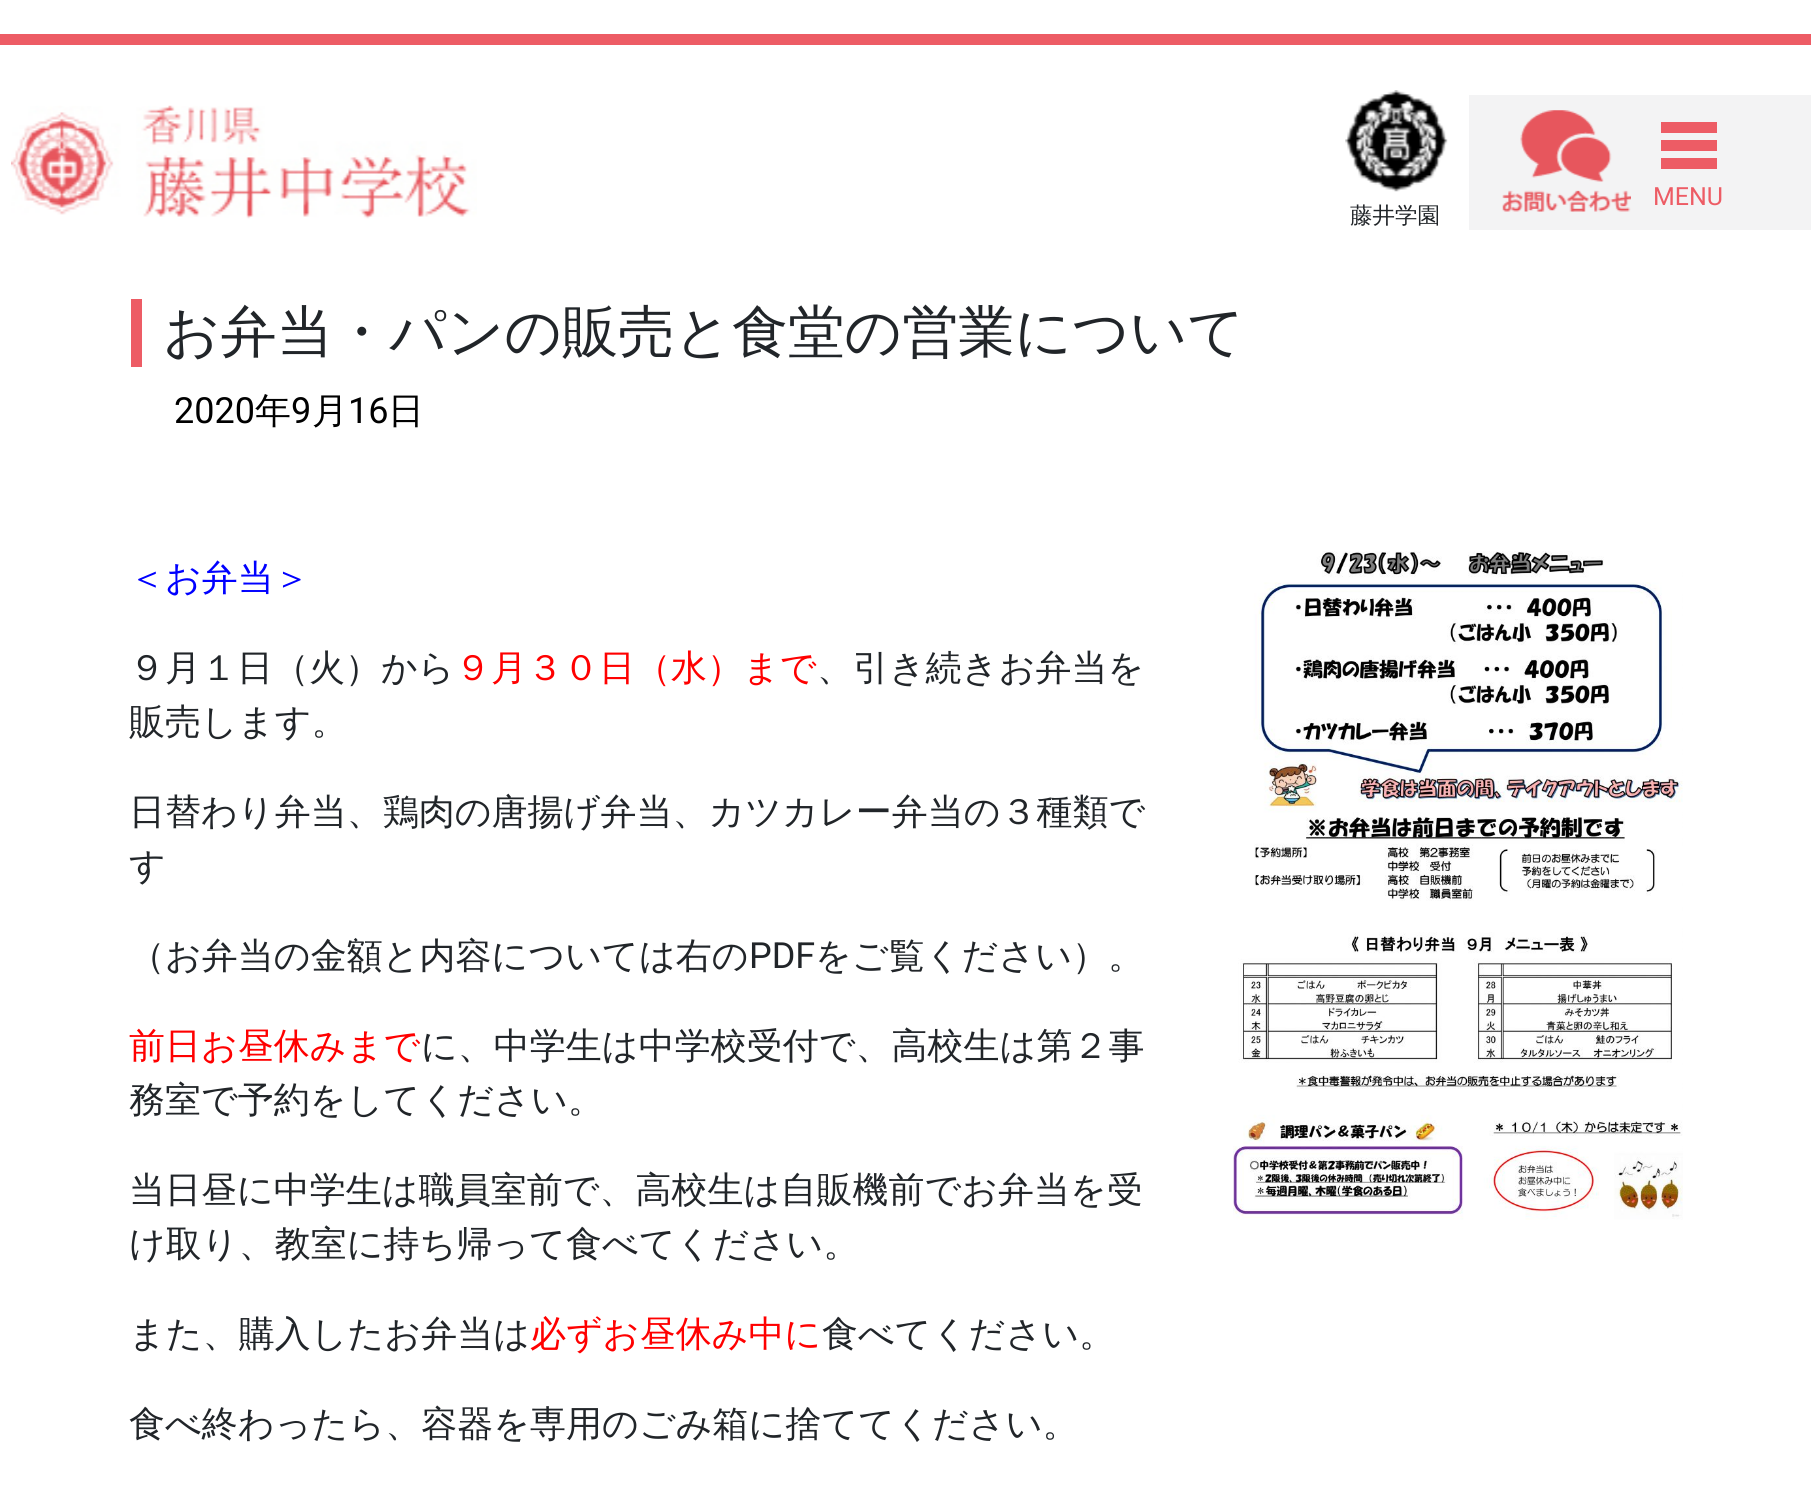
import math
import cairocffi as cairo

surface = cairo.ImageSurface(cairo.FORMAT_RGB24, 1811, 1488)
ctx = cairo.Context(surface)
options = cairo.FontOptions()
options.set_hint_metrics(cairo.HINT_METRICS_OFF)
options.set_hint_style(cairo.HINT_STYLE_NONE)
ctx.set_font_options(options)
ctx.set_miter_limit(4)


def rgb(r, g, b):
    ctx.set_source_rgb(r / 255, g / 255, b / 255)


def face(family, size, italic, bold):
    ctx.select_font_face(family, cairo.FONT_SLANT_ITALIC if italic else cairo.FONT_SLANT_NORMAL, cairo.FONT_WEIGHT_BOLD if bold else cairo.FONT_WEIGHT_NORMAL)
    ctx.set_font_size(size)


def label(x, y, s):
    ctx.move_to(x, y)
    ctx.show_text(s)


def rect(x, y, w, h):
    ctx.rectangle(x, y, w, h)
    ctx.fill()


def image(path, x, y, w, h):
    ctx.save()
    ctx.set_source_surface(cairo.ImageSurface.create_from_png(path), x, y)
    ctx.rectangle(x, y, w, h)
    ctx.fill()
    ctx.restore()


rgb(255, 255, 255)
ctx.paint()
rgb(237, 92, 101)
rect(0, 34, 1811, 11)
image('image0.png', 11, 105, 466, 114)
rgb(243, 243, 244)
rect(1469, 95, 342, 135)
image('image1.png', 1502, 110, 129, 102)
rgb(237, 92, 101)
rect(1661, 122, 56, 11)
rect(1661, 140, 56, 11)
rect(1661, 158, 56, 11)
face('Roboto', 25, 0, 0)
label(1653, 205, 'MENU')
image('image2.png', 1345, 90, 103, 102)
face('WenQuanYi Zen Hei Medium', 22.5, 0, 0)
rgb(33, 37, 41)
label(1350, 223, '藤井学園')
rgb(237, 92, 101)
rect(131, 299, 11, 68)
face('WenQuanYi Zen Hei Medium', 56.25, 0, 0)
rgb(33, 37, 41)
label(163, 351, 'お弁当・パンの販売と食堂の営業について')
face('Roboto', 36, 0, 0)
rgb(0, 0, 0)
label(174, 423, '2020')
face('WenQuanYi Zen Hei Medium', 36, 0, 0)
label(255, 423, '年')
face('Roboto', 36, 0, 0)
label(291, 423, '9')
face('WenQuanYi Zen Hei Medium', 36, 0, 0)
label(312, 423, '月')
face('Roboto', 36, 0, 0)
label(348, 423, '16')
face('WenQuanYi Zen Hei Medium', 36, 0, 0)
label(388, 423, '日')
rgb(0, 0, 255)
label(129, 590, '＜お弁当＞')
image('image3.png', 1233, 551, 450, 669)
rgb(33, 37, 41)
label(129, 680, '９月１日（火）から')
rgb(255, 0, 0)
label(455, 680, '９月３０日（水）まで')
rgb(33, 37, 41)
label(817, 680, '、引き続きお弁当を')
label(129, 734, '販売します。')
label(129, 824, '日替わり弁当、鶏肉の唐揚げ弁当、カツカレー弁当の３種類で')
label(129, 878, 'す')
label(129, 968, '（お弁当の金額と内容については右の')
face('Roboto', 36, 0, 0)
label(749, 968, 'PDF')
face('WenQuanYi Zen Hei Medium', 36, 0, 0)
label(815, 968, 'をご覧ください）。')
rgb(255, 0, 0)
label(129, 1058, '前日お昼休みまで')
rgb(33, 37, 41)
label(421, 1058, 'に、中学生は中学校受付で、高校生は第２事')
label(129, 1112, '務室で予約をしてください。')
label(129, 1202, '当日昼に中学生は職員室前で、高校生は自販機前でお弁当を受')
label(129, 1256, 'け取り、教室に持ち帰って食べてください。')
label(129, 1346, 'また、購入したお弁当は')
rgb(255, 0, 0)
label(530, 1346, '必ずお昼休み中に')
rgb(33, 37, 41)
label(822, 1346, '食べてください。')
label(129, 1436, '食べ終わったら、容器を専用のごみ箱に捨ててください。')
surface.write_to_png('render.png')
